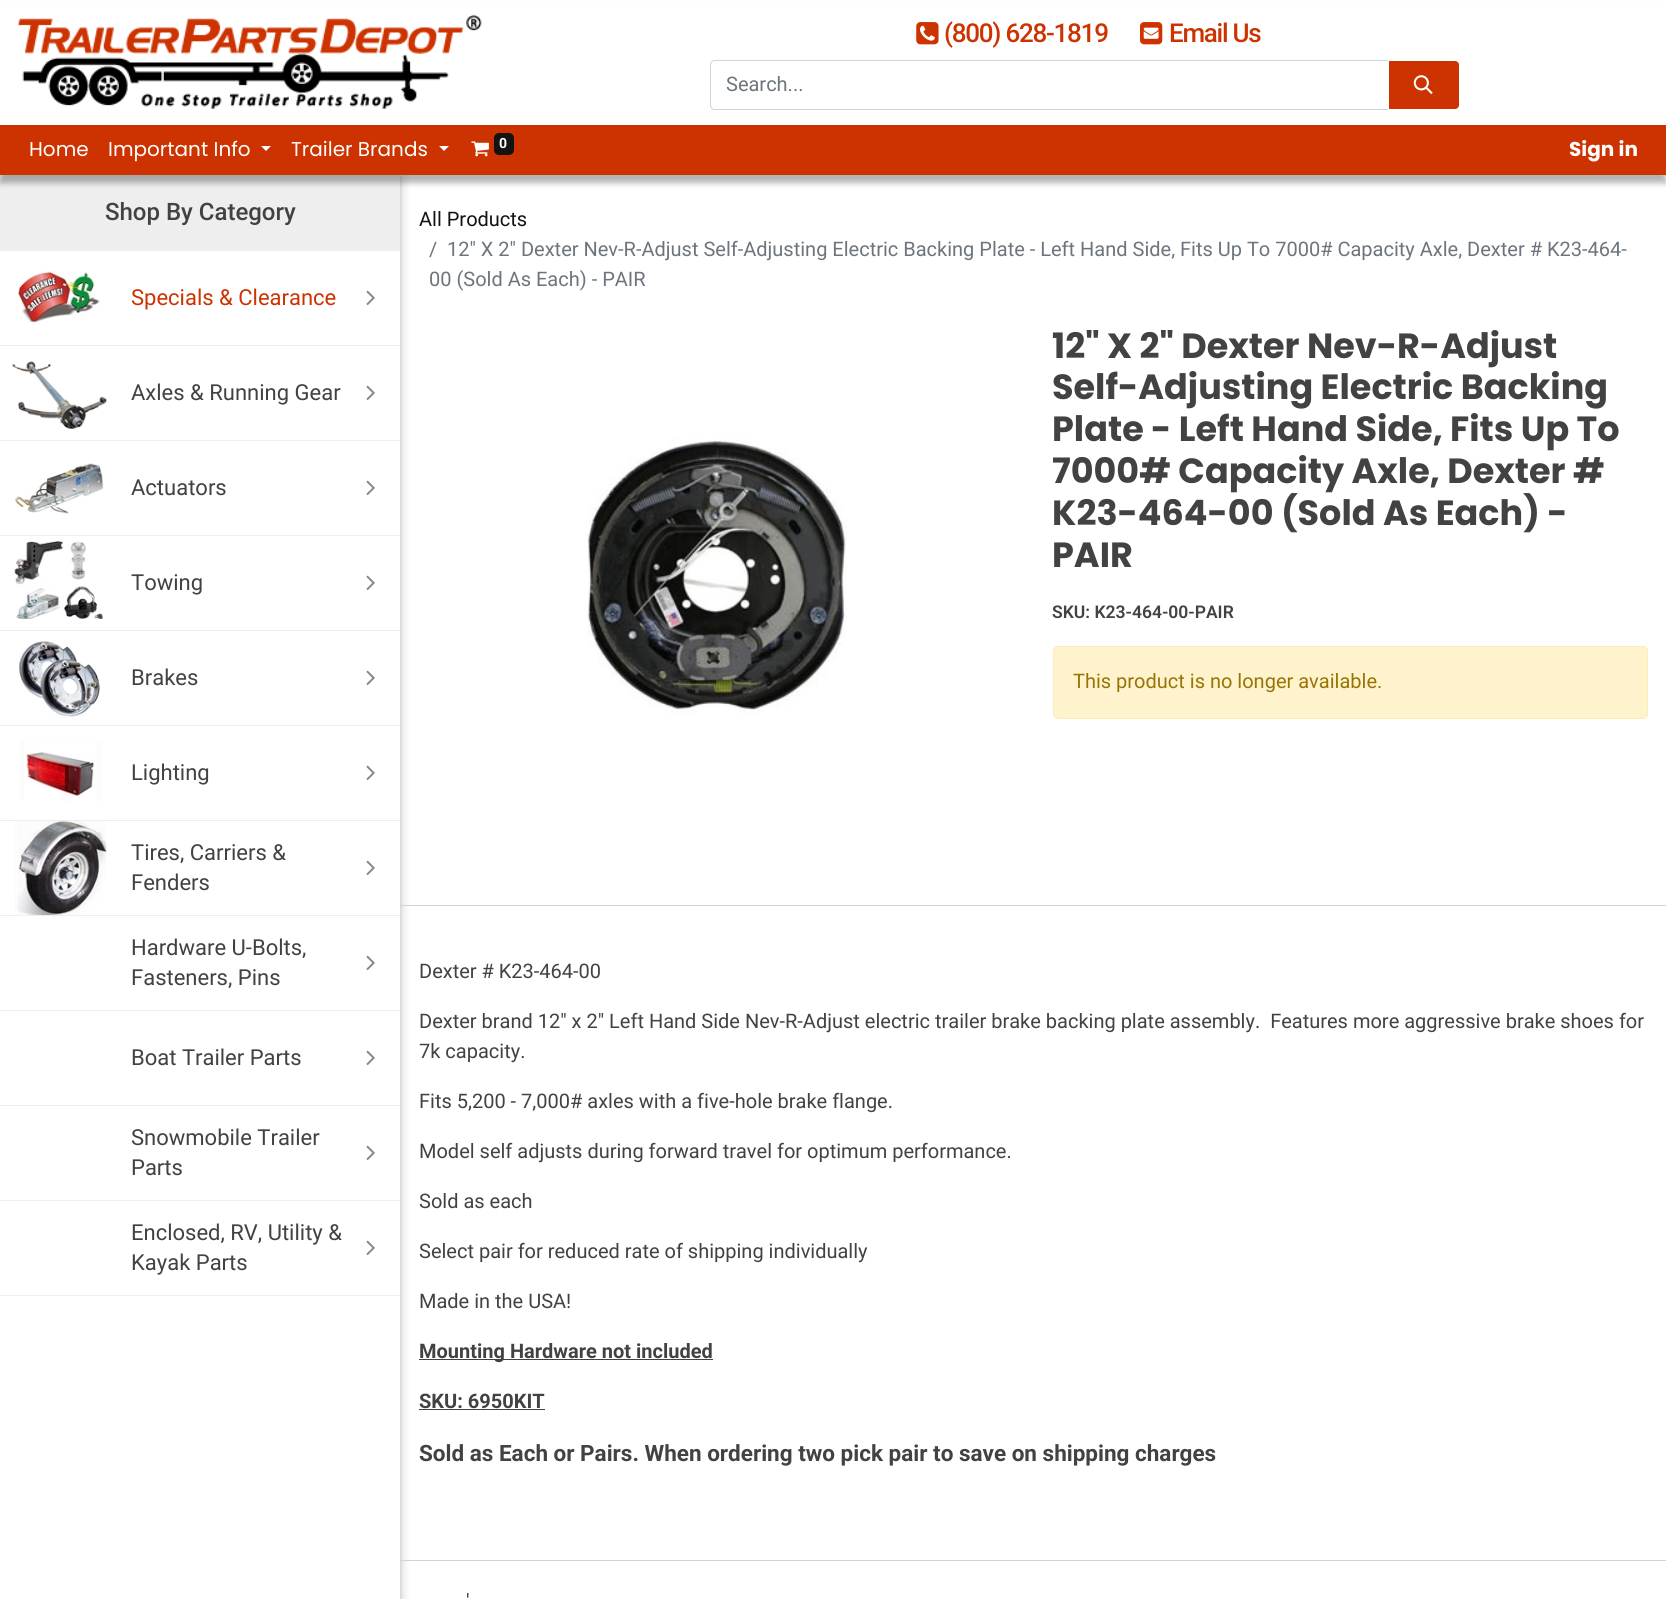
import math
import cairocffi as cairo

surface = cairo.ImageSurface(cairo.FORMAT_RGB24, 1666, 1599)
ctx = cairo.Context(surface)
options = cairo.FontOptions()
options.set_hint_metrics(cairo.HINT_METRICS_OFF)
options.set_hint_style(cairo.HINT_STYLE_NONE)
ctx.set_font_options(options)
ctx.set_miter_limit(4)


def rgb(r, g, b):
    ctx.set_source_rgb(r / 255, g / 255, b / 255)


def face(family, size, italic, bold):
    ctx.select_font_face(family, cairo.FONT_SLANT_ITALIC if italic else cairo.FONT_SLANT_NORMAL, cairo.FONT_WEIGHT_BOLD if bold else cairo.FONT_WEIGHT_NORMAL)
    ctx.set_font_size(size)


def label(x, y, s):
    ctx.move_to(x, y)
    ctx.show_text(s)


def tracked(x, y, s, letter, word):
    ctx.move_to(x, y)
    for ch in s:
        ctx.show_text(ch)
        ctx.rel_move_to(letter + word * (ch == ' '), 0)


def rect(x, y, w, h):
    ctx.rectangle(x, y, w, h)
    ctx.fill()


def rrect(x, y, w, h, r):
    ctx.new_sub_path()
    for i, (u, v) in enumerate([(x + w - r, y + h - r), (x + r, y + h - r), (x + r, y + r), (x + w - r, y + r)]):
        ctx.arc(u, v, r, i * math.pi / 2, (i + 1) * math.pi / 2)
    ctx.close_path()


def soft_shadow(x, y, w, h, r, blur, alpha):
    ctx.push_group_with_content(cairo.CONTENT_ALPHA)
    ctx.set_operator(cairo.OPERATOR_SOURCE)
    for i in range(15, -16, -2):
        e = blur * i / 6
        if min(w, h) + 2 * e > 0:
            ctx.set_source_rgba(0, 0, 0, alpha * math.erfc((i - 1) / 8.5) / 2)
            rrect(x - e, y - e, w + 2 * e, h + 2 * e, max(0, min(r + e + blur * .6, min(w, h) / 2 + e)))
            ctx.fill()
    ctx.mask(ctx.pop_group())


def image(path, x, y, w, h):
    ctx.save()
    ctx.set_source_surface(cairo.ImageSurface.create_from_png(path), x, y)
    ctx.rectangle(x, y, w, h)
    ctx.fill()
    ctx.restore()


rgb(255, 255, 255)
ctx.paint()
ctx.save()
ctx.rectangle(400, 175, 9, 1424)
ctx.clip()
rgb(0, 0, 0)
soft_shadow(3, 175, 400, 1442, 0, 6, 0.12)
ctx.restore()
ctx.save()
ctx.rectangle(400, 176, 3, 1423)
ctx.clip()
rgb(0, 0, 0)
soft_shadow(5, 178, 395, 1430, 0, 3, 0.16)
ctx.restore()
rgb(238, 238, 238)
rect(0, 175, 400, 76)
rgb(0, 0, 0)
soft_shadow(0, 8, 1666, 175, 0, 3, 0.3)
rgb(255, 255, 255)
rect(0, 3, 1666, 122)
image('image0.png', 17, 14, 465, 95)
image('image1.png', 916, 22, 23, 23)
face('Roboto Medium', 26, 0, 0)
rgb(204, 51, 0)
tracked(944, 42, '(800) 628-1819', -1.25, 0)
image('image2.png', 1140, 22, 23, 23)
tracked(1169, 42, 'Email Us', -1.25, 0)
ctx.new_path()
ctx.move_to(715, 60.5)
ctx.line_to(1388.5, 60.5)
ctx.line_to(1388.5, 109.5)
ctx.line_to(715, 109.5)
ctx.curve_to(712.5, 109.5, 710.5, 107.5, 710.5, 105)
ctx.line_to(710.5, 65)
ctx.curve_to(710.5, 62.5, 712.5, 60.5, 715, 60.5)
ctx.close_path()
rgb(206, 212, 218)
ctx.set_line_width(1)
ctx.stroke()
face('Roboto', 20, 0, 0)
rgb(108, 117, 125)
label(726, 91, 'Search...')
rgb(204, 51, 0)
ctx.new_path()
ctx.move_to(1388.5, 60.5)
ctx.line_to(1455, 60.5)
ctx.curve_to(1457.5, 60.5, 1459.5, 62.5, 1459.5, 65)
ctx.line_to(1459.5, 105)
ctx.curve_to(1459.5, 107.5, 1457.5, 109.5, 1455, 109.5)
ctx.line_to(1388.5, 109.5)
ctx.close_path()
ctx.fill_preserve()
rgb(255, 255, 255)
ctx.stroke()
image('image3.png', 1413, 75, 20, 20)
rgb(204, 51, 0)
rect(0, 125, 1666, 50)
face('Poppins', 20, 0, 0)
rgb(255, 255, 255)
label(29, 156, 'Home')
label(108, 156, 'Important Info')
ctx.new_path()
ctx.move_to(261, 146)
ctx.line_to(271, 146)
ctx.line_to(266, 151)
ctx.close_path()
ctx.fill()
label(291, 156, 'Trailer Brands')
ctx.new_path()
ctx.move_to(439, 146)
ctx.line_to(449, 146)
ctx.line_to(444, 151)
ctx.close_path()
ctx.fill()
image('image4.png', 471, 141, 18, 16)
rgb(19, 19, 20)
rrect(494, 133, 20, 22, 5)
ctx.fill()
face('Roboto', 14, 0, 1)
rgb(255, 255, 255)
label(499, 148, '0')
face('Poppins', 20, 0, 1)
label(1569, 156, 'Sign in')
face('Roboto Medium', 24, 0, 0)
rgb(66, 66, 66)
label(105, 220, 'Shop By Category')
rgb(238, 238, 238)
rect(0, 345, 400, 1)
image('image5.png', 17, 271, 83, 52)
face('Roboto', 22, 0, 0)
rgb(204, 51, 0)
label(131, 305, 'Specials & Clearance')
image('image6.png', 366, 290, 9, 16)
rgb(238, 238, 238)
rect(0, 440, 400, 1)
image('image7.png', 12, 361, 95, 69)
rgb(66, 66, 66)
label(131, 400, 'Axles & Running Gear')
image('image6.png', 366, 385, 9, 16)
rgb(238, 238, 238)
rect(0, 535, 400, 1)
image('image8.png', 15, 463, 89, 51)
rgb(66, 66, 66)
label(131, 495, 'Actuators')
image('image6.png', 366, 480, 9, 16)
rgb(238, 238, 238)
rect(0, 630, 400, 1)
image('image9.png', 14, 541, 89, 78)
rgb(66, 66, 66)
label(131, 590, 'Towing')
image('image6.png', 366, 575, 9, 16)
rgb(238, 238, 238)
rect(0, 725, 400, 1)
image('image10.png', 19, 641, 81, 76)
rgb(66, 66, 66)
label(131, 685, 'Brakes')
image('image6.png', 366, 670, 9, 16)
rgb(238, 238, 238)
rect(0, 820, 400, 1)
image('image11.png', 20, 741, 83, 60)
rgb(66, 66, 66)
label(131, 780, 'Lighting')
image('image6.png', 366, 765, 9, 16)
rgb(238, 238, 238)
rect(0, 915, 400, 1)
image('image12.png', 15, 821, 92, 94)
rgb(66, 66, 66)
label(131, 860, 'Tires, Carriers &')
label(131, 890, 'Fenders')
image('image6.png', 366, 860, 9, 16)
rgb(238, 238, 238)
rect(0, 1010, 400, 1)
rgb(66, 66, 66)
label(131, 955, 'Hardware U-Bolts,')
label(131, 985, 'Fasteners, Pins')
image('image6.png', 366, 955, 9, 16)
rgb(238, 238, 238)
rect(0, 1105, 400, 1)
rgb(66, 66, 66)
label(131, 1065, 'Boat Trailer Parts')
image('image6.png', 366, 1050, 9, 16)
rgb(238, 238, 238)
rect(0, 1200, 400, 1)
rgb(66, 66, 66)
label(131, 1145, 'Snowmobile Trailer')
label(131, 1175, 'Parts')
image('image6.png', 366, 1145, 9, 16)
rgb(238, 238, 238)
rect(0, 1295, 400, 1)
rgb(66, 66, 66)
label(131, 1240, 'Enclosed, RV, Utility &')
label(131, 1270, 'Kayak Parts')
image('image6.png', 366, 1240, 9, 16)
face('Roboto', 20, 0, 0)
rgb(19, 19, 20)
label(419, 226, 'All Products')
rgb(108, 117, 125)
label(429, 256, '/')
label(447, 256, '12" X 2" Dexter Nev-R-Adjust Self-Adjusting Electric Backing Plate - Left Hand Side, Fits Up To 7000# Capacity Axle, Dexter # K23-464-')
label(429, 286, '00 (Sold As Each) - PAIR')
image('image13.png', 587, 438, 260, 279)
face('Poppins', 35, 0, 1)
rgb(66, 66, 66)
label(1052, 358, '12" X 2" Dexter Nev-R-Adjust')
label(1052, 399, 'Self-Adjusting Electric Backing')
label(1052, 441, 'Plate - Left Hand Side, Fits Up To')
label(1052, 483, '7000# Capacity Axle, Dexter #')
label(1052, 525, 'K23-464-00 (Sold As Each) -')
label(1052, 567, 'PAIR')
face('Roboto SemiBold', 17.5, 0, 0)
label(1052, 618, 'SKU: K23-464-00-PAIR')
rgb(255, 243, 205)
rrect(1053.5, 646.5, 594, 72, 4.5)
ctx.fill_preserve()
rgb(255, 236, 181)
ctx.stroke()
face('Roboto', 20, 0, 0)
rgb(153, 116, 4)
label(1073, 688, 'This product is no longer available.')
rgb(206, 212, 218)
rect(400, 905, 1266, 1)
rgb(66, 66, 66)
label(419, 978, 'Dexter # K23-464-00')
label(419, 1028, 'Dexter brand 12" x 2" Left Hand Side Nev-R-Adjust electric trailer brake backing plate assembly.  Features more aggressive brake shoes for')
label(419, 1058, '7k capacity.')
label(419, 1108, 'Fits 5,200 - 7,000# axles with a five-hole brake flange.')
label(419, 1158, 'Model self adjusts during forward travel for optimum performance.')
label(419, 1208, 'Sold as each')
label(419, 1258, 'Select pair for reduced rate of shipping individually')
label(419, 1308, 'Made in the USA!')
rect(419, 1359, 294, 1)
face('Roboto', 20, 0, 1)
label(419, 1358, 'Mounting Hardware not included')
label(419, 1408, 'SKU: 6950KIT')
rect(419, 1409, 126, 1)
face('Roboto', 22.5, 0, 1)
label(419, 1461, 'Sold as Each or Pairs. When ordering two pick pair to save on shipping charges')
rgb(206, 212, 218)
rect(400, 1560, 1266, 1)
face('Roboto', 20, 0, 0)
rgb(66, 66, 66)
label(466, 1608, '\'')
surface.write_to_png('render.png')
